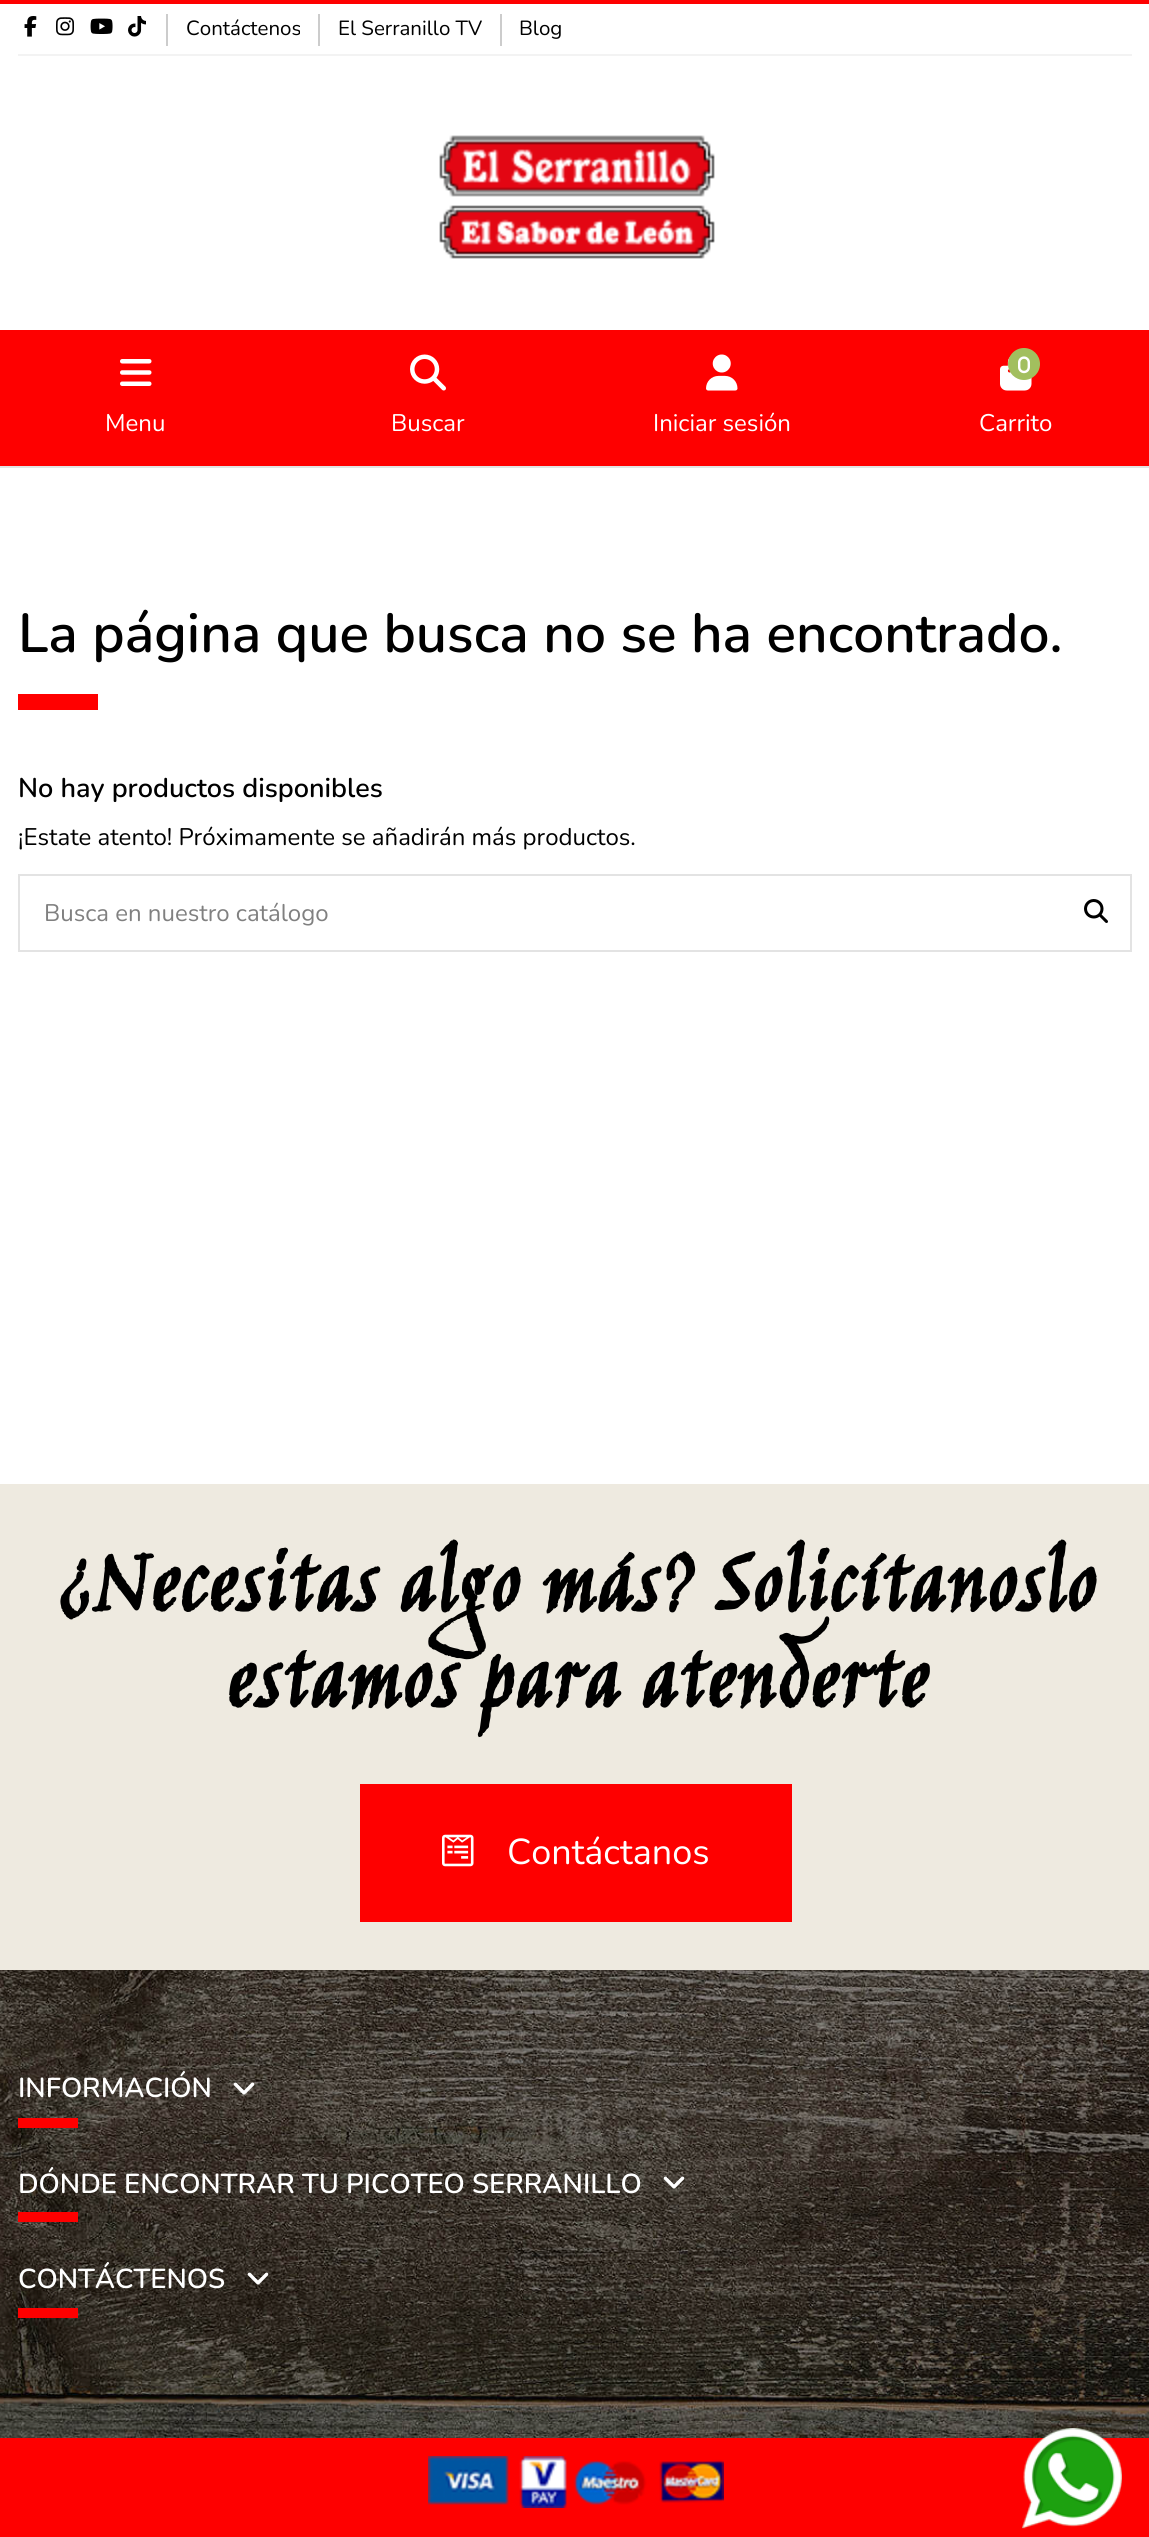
import math
import cairocffi as cairo

surface = cairo.ImageSurface(cairo.FORMAT_RGB24, 1149, 2537)
ctx = cairo.Context(surface)
options = cairo.FontOptions()
options.set_hint_metrics(cairo.HINT_METRICS_OFF)
options.set_hint_style(cairo.HINT_STYLE_NONE)
ctx.set_font_options(options)
ctx.set_miter_limit(4)


def rgb(r, g, b):
    ctx.set_source_rgb(r / 255, g / 255, b / 255)


def face(family, size, italic, bold):
    ctx.select_font_face(family, cairo.FONT_SLANT_ITALIC if italic else cairo.FONT_SLANT_NORMAL, cairo.FONT_WEIGHT_BOLD if bold else cairo.FONT_WEIGHT_NORMAL)
    ctx.set_font_size(size)


def label(x, y, s):
    ctx.move_to(x, y)
    ctx.show_text(s)


def tracked(x, y, s, letter, word):
    ctx.move_to(x, y)
    for ch in s:
        ctx.show_text(ch)
        ctx.rel_move_to(letter + word * (ch == ' '), 0)


def rect(x, y, w, h):
    ctx.rectangle(x, y, w, h)
    ctx.fill()


def image(path, x, y, w, h):
    ctx.save()
    ctx.set_source_surface(cairo.ImageSurface.create_from_png(path), x, y)
    ctx.rectangle(x, y, w, h)
    ctx.fill()
    ctx.restore()


rgb(255, 255, 255)
ctx.paint()
rgb(254, 0, 0)
rect(0, 0, 1149, 4)
rgb(243, 243, 243)
rect(18, 54, 1114, 2)
image('image0.png', 24, 16, 13, 21)
image('image1.png', 56, 17, 18, 19)
image('image2.png', 90, 18, 23, 16)
image('image3.png', 128, 16, 18, 21)
rgb(204, 204, 204)
rect(166, 14, 2, 32)
face('Nunito', 20.5, 0, 0)
rgb(0, 0, 0)
label(186, 35, 'Contáctenos')
rgb(204, 204, 204)
rect(318, 14, 2, 32)
rgb(0, 0, 0)
label(338, 35, 'El Serranillo TV')
rgb(204, 204, 204)
rect(500, 14, 2, 32)
rgb(0, 0, 0)
label(519, 35, 'Blog')
rgb(227, 227, 227)
rect(0, 466, 1149, 2)
image('image4.png', 439, 135, 276, 124)
rgb(254, 0, 0)
rect(0, 330, 1149, 136)
image('image5.png', 120, 359, 32, 27)
face('Nunito', 24, 0, 0)
rgb(255, 255, 255)
label(105, 431, 'Menu')
image('image6.png', 410, 354, 36, 37)
label(391, 431, 'Buscar')
image('image7.png', 706, 354, 32, 37)
label(653, 431, 'Iniciar sesión')
image('image9.png', 1000, 356, 32, 35)
rgb(162, 191, 94)
ctx.arc(1024, 364, 16, 0, 2 * math.pi)
ctx.fill()
image('image8.png', 1018, 356, 12, 18)
rgb(255, 255, 255)
label(979, 431, 'Carrito')
face('Nunito SemiBold', 54.9, 0, 0)
rgb(0, 0, 0)
label(18, 652, 'La página que busca no se ha encontrado.')
rgb(255, 0, 0)
rect(18, 694, 80, 16)
face('Nunito SemiBold', 27, 0, 0)
rgb(0, 0, 0)
label(18, 797, 'No hay productos disponibles')
face('Nunito', 24, 0, 0)
label(18, 845, '¡Estate atento! Próximamente se añadirán más productos.')
ctx.rectangle(19, 875, 1112, 76)
rgb(227, 227, 227)
ctx.stroke()
rgb(128, 128, 128)
label(44, 921, 'Busca en nuestro catálogo')
image('image10.png', 1084, 899, 24, 24)
image('image11.png', 0, 1970, 1149, 468)
rgb(238, 234, 224)
rect(0, 1484, 1149, 486)
face('Jim Nightshade', 96, 0, 1)
rgb(0, 0, 0)
tracked(56, 1610, '¿Necesitas algo más? Solicítanoslo', 1.8, 0)
tracked(224, 1706, 'estamos para atenderte', 1.8, 0)
rgb(254, 0, 0)
rect(360, 1784, 432, 138)
image('image12.png', 442, 1834, 32, 33)
face('Nunito', 36, 0, 0)
rgb(255, 255, 255)
label(507, 1864, 'Contáctanos')
face('Nunito SemiBold', 27.4, 0, 0)
label(18, 2097, 'INFORMACIÓN')
image('image13.png', 233, 2082, 22, 13)
rgb(254, 0, 0)
rect(18, 2118, 60, 10)
rgb(255, 255, 255)
label(18, 2193, 'DÓNDE ENCONTRAR TU PICOTEO SERRANILLO')
image('image14.png', 663, 2176, 22, 13)
rgb(254, 0, 0)
rect(18, 2212, 60, 10)
rgb(255, 255, 255)
label(18, 2288, 'CONTÁCTENOS')
image('image15.png', 247, 2272, 22, 13)
rgb(254, 0, 0)
rect(18, 2308, 60, 10)
rect(0, 2438, 1149, 99)
image('image16.png', 1022, 2428, 100, 101)
image('image17.png', 428, 2456, 296, 52)
surface.write_to_png('render.png')
